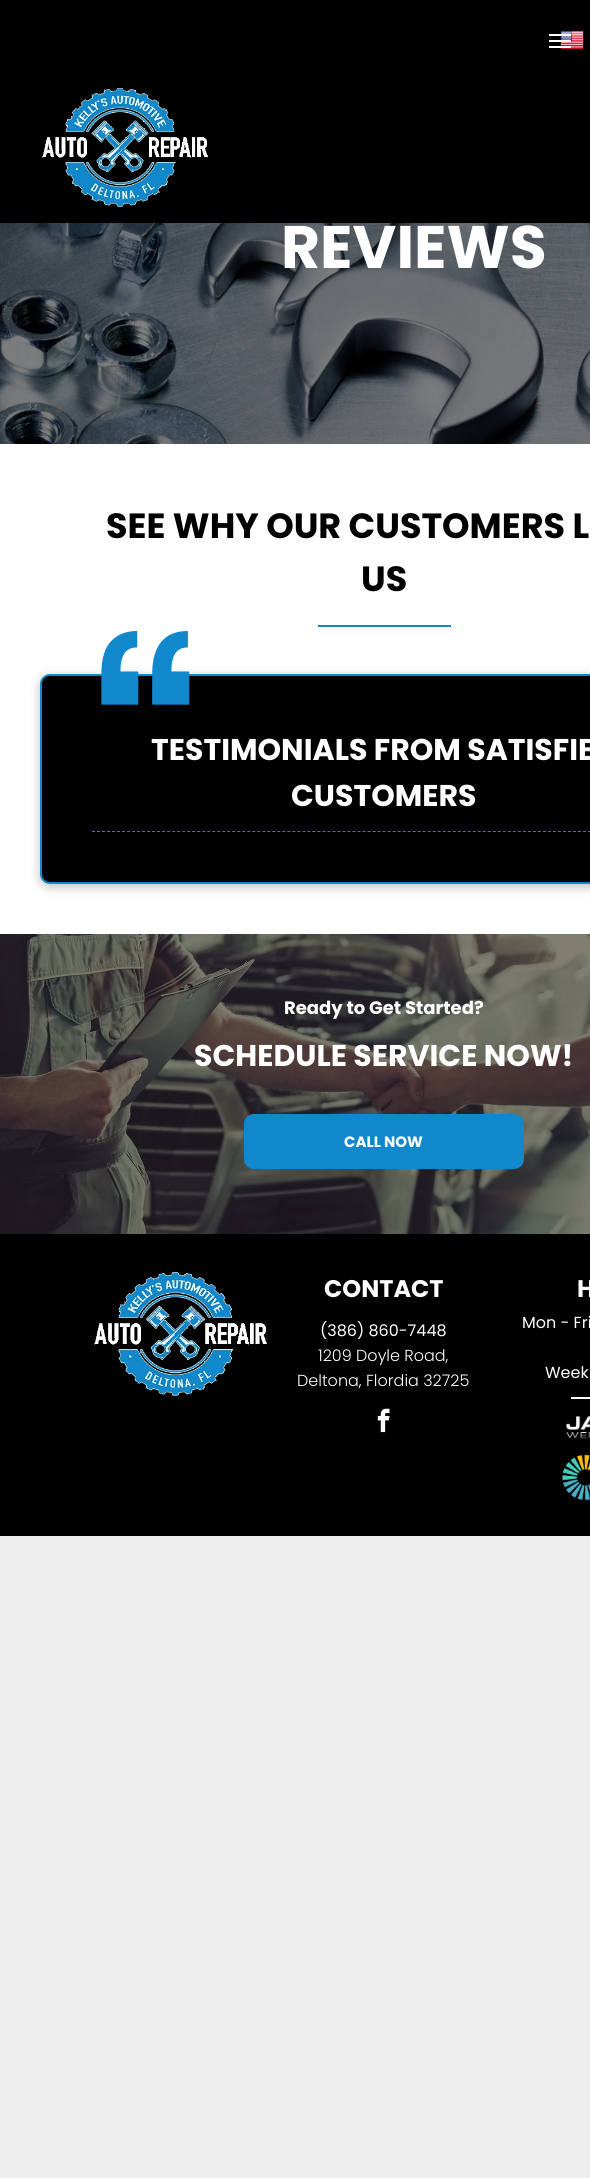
import math
import cairocffi as cairo

surface = cairo.ImageSurface(cairo.FORMAT_RGB24, 590, 2178)
ctx = cairo.Context(surface)
options = cairo.FontOptions()
options.set_hint_metrics(cairo.HINT_METRICS_OFF)
options.set_hint_style(cairo.HINT_STYLE_NONE)
ctx.set_font_options(options)
ctx.set_miter_limit(4)


def rgb(r, g, b):
    ctx.set_source_rgb(r / 255, g / 255, b / 255)


def face(family, size, italic, bold):
    ctx.select_font_face(family, cairo.FONT_SLANT_ITALIC if italic else cairo.FONT_SLANT_NORMAL, cairo.FONT_WEIGHT_BOLD if bold else cairo.FONT_WEIGHT_NORMAL)
    ctx.set_font_size(size)


def label(x, y, s):
    ctx.move_to(x, y)
    ctx.show_text(s)


def rect(x, y, w, h):
    ctx.rectangle(x, y, w, h)
    ctx.fill()


def rrect(x, y, w, h, r):
    ctx.new_sub_path()
    for i, (u, v) in enumerate([(x + w - r, y + h - r), (x + r, y + h - r), (x + r, y + r), (x + w - r, y + r)]):
        ctx.arc(u, v, r, i * math.pi / 2, (i + 1) * math.pi / 2)
    ctx.close_path()


def soft_shadow(x, y, w, h, r, blur, alpha):
    ctx.push_group_with_content(cairo.CONTENT_ALPHA)
    ctx.set_operator(cairo.OPERATOR_SOURCE)
    for i in range(15, -16, -2):
        e = blur * i / 6
        if min(w, h) + 2 * e > 0:
            ctx.set_source_rgba(0, 0, 0, alpha * math.erfc((i - 1) / 8.5) / 2)
            rrect(x - e, y - e, w + 2 * e, h + 2 * e, max(0, min(r + e + blur * .6, min(w, h) / 2 + e)))
            ctx.fill()
    ctx.mask(ctx.pop_group())


def image(path, x, y, w, h):
    ctx.save()
    ctx.set_source_surface(cairo.ImageSurface.create_from_png(path), x, y)
    ctx.rectangle(x, y, w, h)
    ctx.fill()
    ctx.restore()


rgb(238, 238, 238)
ctx.paint()
rgb(255, 255, 255)
rect(0, 444, 590, 490)
rgb(0, 0, 0)
rect(0, 0, 590, 223)
image('image0.png', 560, 30, 24, 20)
image('image1.png', 42, 88, 166, 119)
rgb(255, 255, 255)
rect(549, 34, 22, 2)
rect(549, 40, 22, 2)
rect(549, 46, 22, 2)
image('image2.png', 0, 223, 590, 221)
face('Poppins', 60, 0, 1)
label(281, 268, 'REVIEWS')
face('Poppins', 35, 0, 1)
rgb(0, 0, 0)
label(106, 538, 'SEE WHY OUR CUSTOMERS L')
label(361, 591, 'US')
rgb(18, 136, 204)
rect(318, 625, 133, 2)
rgb(0, 0, 0)
soft_shadow(40, 677, 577, 210, 10, 5.5, 0.25)
rgb(0, 0, 0)
rrect(41, 675, 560, 208, 9)
ctx.fill_preserve()
rgb(18, 136, 204)
ctx.stroke()
image('image3.png', 101, 631, 89, 74)
face('Poppins', 30, 0, 1)
rgb(255, 255, 255)
label(151, 760, 'TESTIMONIALS FROM SATISFIE')
label(291, 806, 'CUSTOMERS')
ctx.new_path()
ctx.move_to(92, 831.5)
ctx.line_to(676, 831.5)
rgb(18, 136, 204)
ctx.set_line_width(1)
ctx.set_dash([3, 2.01])
ctx.stroke()
image('image4.png', 0, 934, 590, 300)
face('Poppins', 18, 0, 1)
rgb(255, 255, 255)
label(284, 1014, 'Ready to Get Started?')
face('Poppins', 30, 0, 1)
label(194, 1066, 'SCHEDULE SERVICE NOW!')
rgb(18, 136, 204)
rrect(244, 1114, 280, 55, 10)
ctx.fill()
face('Poppins', 15, 0, 1)
rgb(255, 255, 255)
label(344, 1147, 'CALL NOW')
rgb(0, 0, 0)
rect(0, 1234, 590, 302)
image('image5.png', 94, 1272, 173, 124)
face('Poppins', 24, 0, 1)
rgb(255, 255, 255)
label(324, 1297, 'CONTACT')
face('Poppins', 16, 0, 0)
label(320, 1336, '(386) 860-7448')
face('Poppins Light', 16, 0, 0)
label(318, 1361, '1209 Doyle Road,')
label(297, 1386, 'Deltona, Flordia 32725')
image('image6.png', 377, 1408, 13, 25)
face('Poppins', 24, 0, 1)
label(577, 1297, 'H')
face('Poppins', 16, 0, 0)
label(522, 1328, 'Mon - Fri')
label(545, 1378, 'Week')
rect(571, 1397, 19, 2)
image('image7.png', 566, 1416, 24, 23)
image('image8.png', 562, 1454, 28, 47)
surface.write_to_png('render.png')
